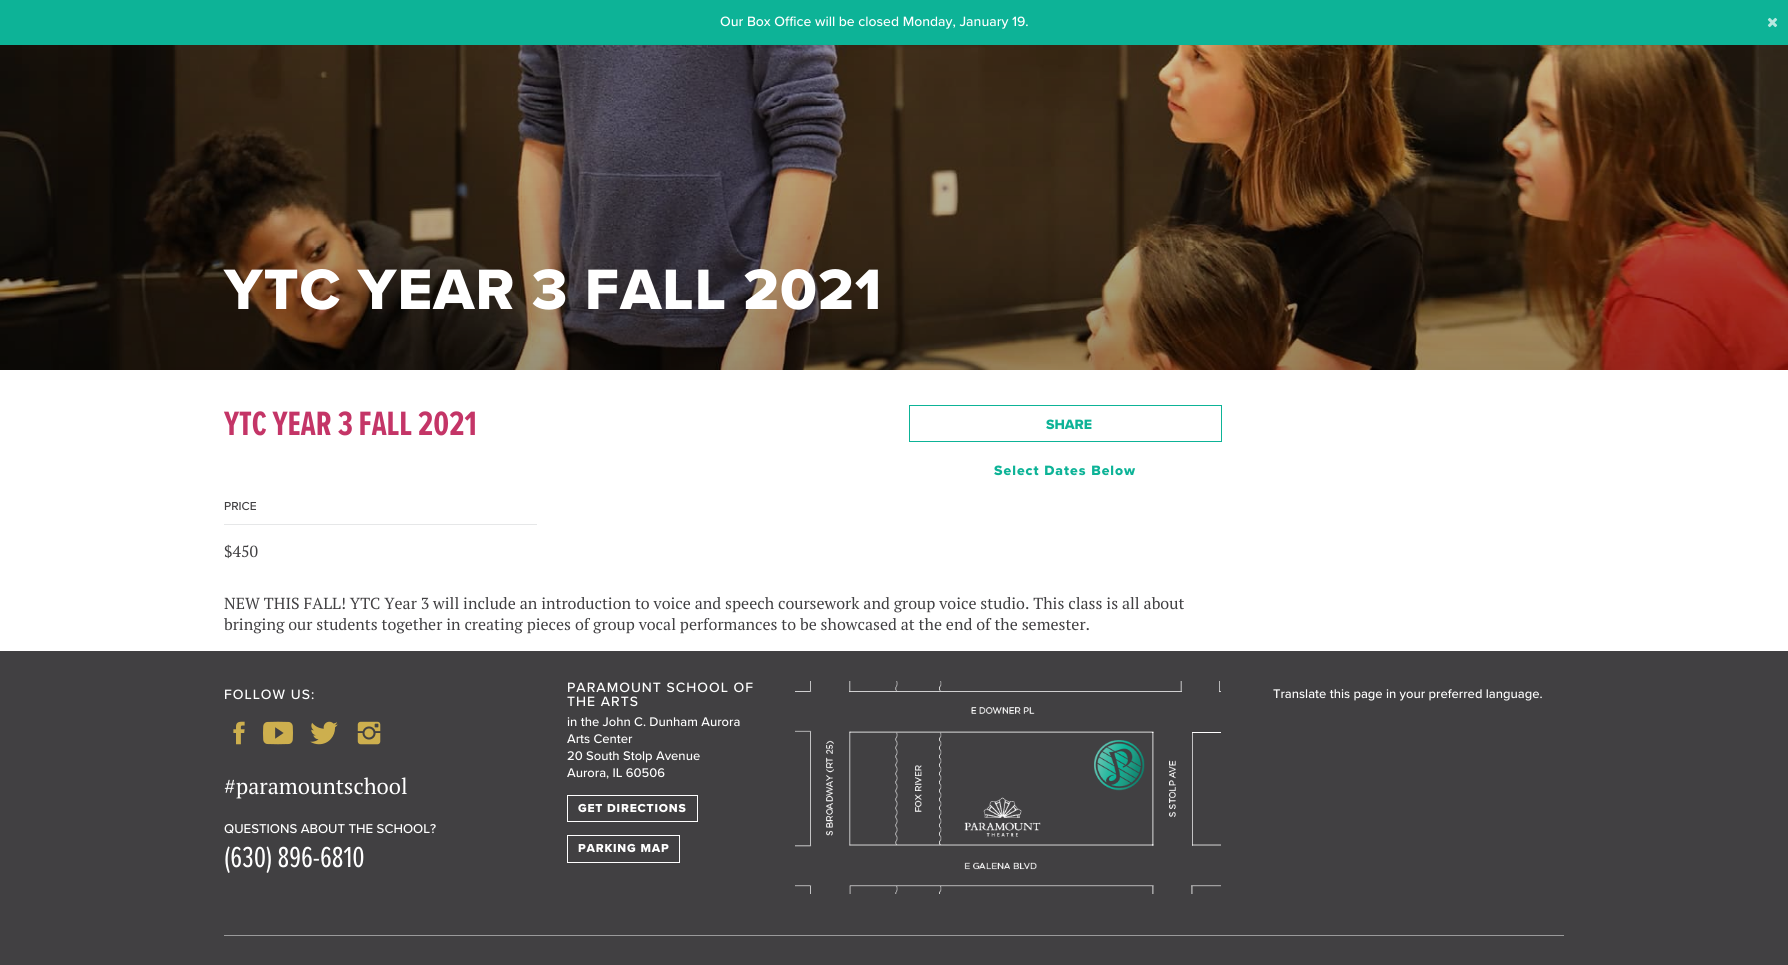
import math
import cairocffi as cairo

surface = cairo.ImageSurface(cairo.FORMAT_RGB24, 1788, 965)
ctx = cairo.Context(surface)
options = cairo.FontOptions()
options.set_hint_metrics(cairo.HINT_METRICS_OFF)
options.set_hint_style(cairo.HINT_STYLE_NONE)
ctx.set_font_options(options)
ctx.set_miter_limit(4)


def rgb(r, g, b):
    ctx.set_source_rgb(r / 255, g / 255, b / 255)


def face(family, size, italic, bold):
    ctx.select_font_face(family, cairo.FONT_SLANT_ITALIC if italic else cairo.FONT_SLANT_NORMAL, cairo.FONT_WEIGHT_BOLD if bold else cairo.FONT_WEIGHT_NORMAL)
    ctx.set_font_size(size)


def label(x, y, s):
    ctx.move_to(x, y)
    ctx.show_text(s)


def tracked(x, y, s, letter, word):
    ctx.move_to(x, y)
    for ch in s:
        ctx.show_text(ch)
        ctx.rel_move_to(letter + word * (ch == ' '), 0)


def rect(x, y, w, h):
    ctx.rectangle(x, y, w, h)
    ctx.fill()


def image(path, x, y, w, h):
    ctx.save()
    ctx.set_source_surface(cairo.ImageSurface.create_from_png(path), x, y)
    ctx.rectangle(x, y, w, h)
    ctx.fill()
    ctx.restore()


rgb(255, 255, 255)
ctx.paint()
rgb(13, 179, 151)
rect(0, 0, 1788, 45)
face('Proxima Nova Medium', 14, 0, 0)
rgb(255, 255, 255)
label(720, 26, 'Our Box Office will be closed Monday, January 19.')
image('image0.png', 1767, 17, 11, 11)
image('image1.png', 0, 45, 1788, 325)
face('Proxima Nova ExtraBold', 59, 0, 0)
tracked(224, 309, 'YTC YEAR 3 FALL 2021', 1.1, 0)
face('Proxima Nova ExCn', 35, 0, 1)
rgb(196, 53, 103)
label(224, 435, 'YTC YEAR 3 FALL 2021')
ctx.rectangle(909.5, 405.5, 312, 36)
rgb(13, 179, 151)
ctx.set_line_width(1)
ctx.stroke()
face('Proxima Nova ExtraBold', 14, 0, 0)
label(1046, 429, 'SHARE')
tracked(994, 475, 'Select Dates Below', 1, 0)
rgb(230, 231, 232)
rect(224, 524, 313, 1)
face('Proxima Nova Medium', 12, 0, 0)
rgb(65, 64, 66)
label(224, 510, 'PRICE')
face('PT Serif', 16, 0, 0)
label(224, 557, '$450')
label(224, 609, 'NEW THIS FALL! YTC Year 3 will include an introduction to voice and speech coursework and group voice studio. This class is all about')
label(224, 630, 'bringing our students together in creating pieces of group vocal performances to be showcased at the end of the semester.')
rect(0, 651, 1788, 314)
rgb(154, 154, 155)
rect(224, 935, 1340, 1)
face('Proxima Nova Medium', 14, 0, 0)
rgb(255, 255, 255)
tracked(224, 699, 'FOLLOW US:', 1, 0)
image('image2.png', 233, 721, 12, 24)
image('image3.png', 263, 721, 30, 24)
image('image4.png', 310, 721, 28, 24)
image('image5.png', 357, 721, 24, 24)
face('PT Serif', 22, 0, 0)
label(224, 794, '#paramountschool')
face('Proxima Nova Medium', 13.25, 0, 0)
label(224, 833, 'QUESTIONS ABOUT THE SCHOOL?')
face('Proxima Nova ExCn', 30, 0, 0)
label(224, 867, '(630) 896-6810')
face('Proxima Nova Medium', 14, 0, 0)
tracked(567, 692, 'PARAMOUNT SCHOOL OF', 1, 0)
tracked(567, 706, 'THE ARTS', 1, 0)
face('Proxima Nova Medium', 13, 0, 0)
label(567, 726, 'in the John C. Dunham Aurora')
label(567, 743, 'Arts Center')
label(567, 760, '20 South Stolp Avenue')
label(567, 777, 'Aurora, IL 60506')
ctx.rectangle(567.5, 795.5, 130, 26)
ctx.stroke()
face('Proxima Nova ExtraBold', 12, 0, 0)
tracked(578, 812, 'GET DIRECTIONS', 0.8, 0)
ctx.rectangle(567.5, 835.5, 112, 27)
ctx.stroke()
tracked(578, 852, 'PARKING MAP', 0.8, 0)
image('image6.png', 795, 681, 426, 213)
face('Proxima Nova Medium', 13, 0, 0)
label(1273, 698, 'Translate this page in your preferred language.')
surface.write_to_png('render.png')
